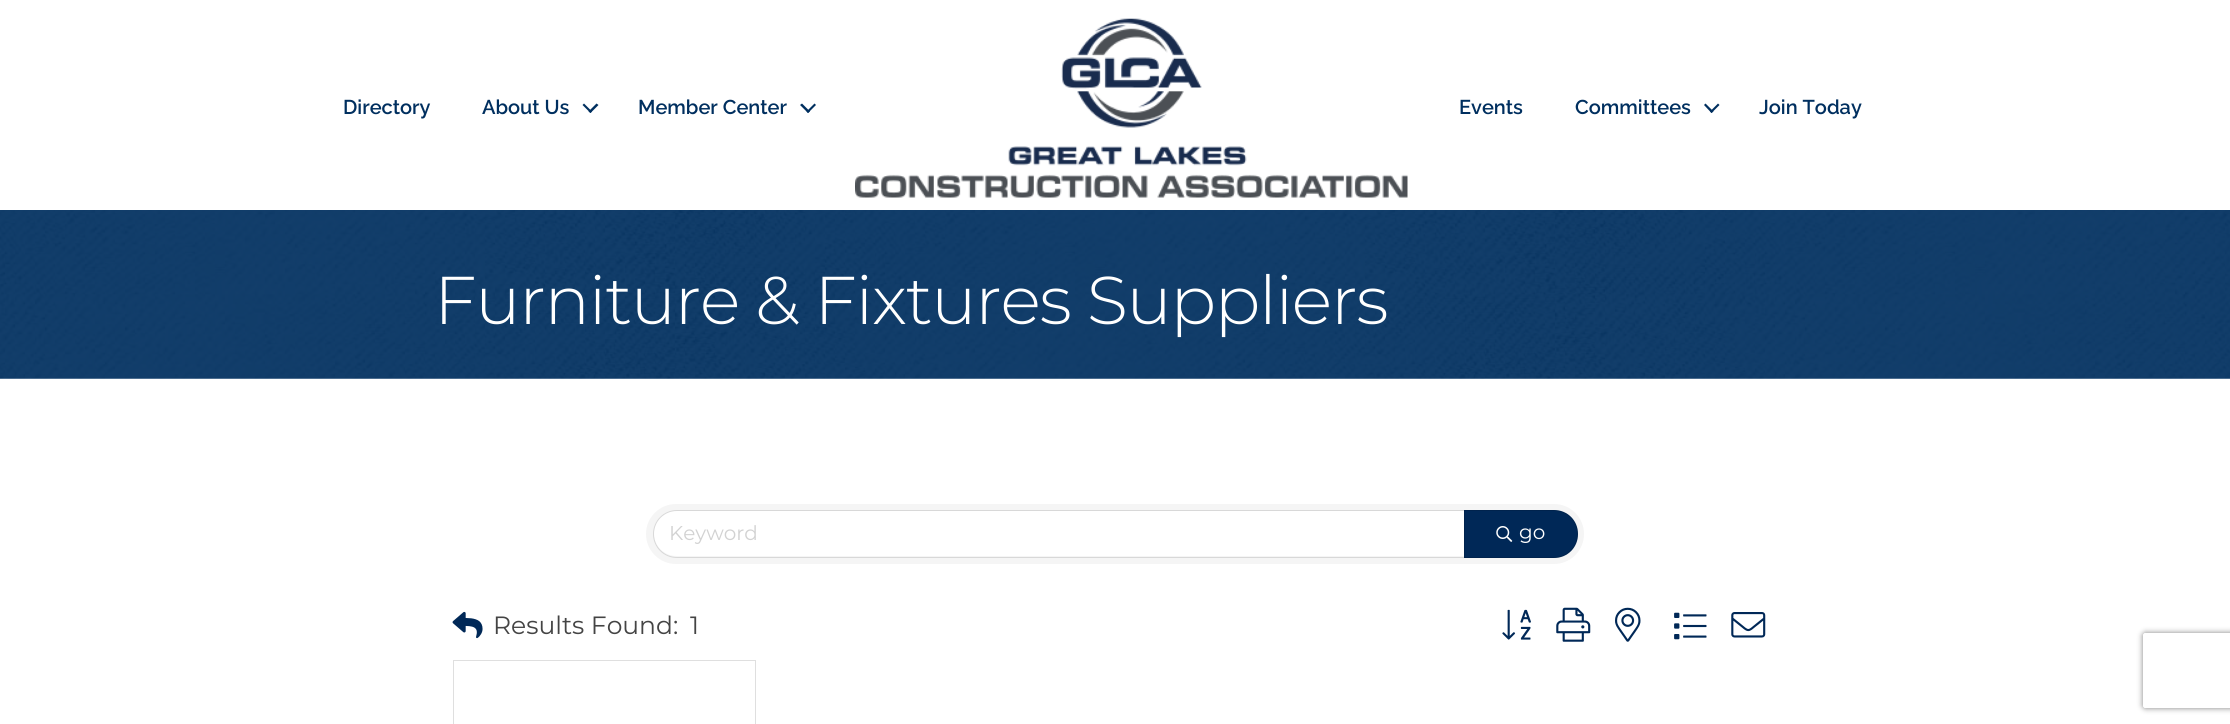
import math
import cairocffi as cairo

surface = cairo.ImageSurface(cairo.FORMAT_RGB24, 2230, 724)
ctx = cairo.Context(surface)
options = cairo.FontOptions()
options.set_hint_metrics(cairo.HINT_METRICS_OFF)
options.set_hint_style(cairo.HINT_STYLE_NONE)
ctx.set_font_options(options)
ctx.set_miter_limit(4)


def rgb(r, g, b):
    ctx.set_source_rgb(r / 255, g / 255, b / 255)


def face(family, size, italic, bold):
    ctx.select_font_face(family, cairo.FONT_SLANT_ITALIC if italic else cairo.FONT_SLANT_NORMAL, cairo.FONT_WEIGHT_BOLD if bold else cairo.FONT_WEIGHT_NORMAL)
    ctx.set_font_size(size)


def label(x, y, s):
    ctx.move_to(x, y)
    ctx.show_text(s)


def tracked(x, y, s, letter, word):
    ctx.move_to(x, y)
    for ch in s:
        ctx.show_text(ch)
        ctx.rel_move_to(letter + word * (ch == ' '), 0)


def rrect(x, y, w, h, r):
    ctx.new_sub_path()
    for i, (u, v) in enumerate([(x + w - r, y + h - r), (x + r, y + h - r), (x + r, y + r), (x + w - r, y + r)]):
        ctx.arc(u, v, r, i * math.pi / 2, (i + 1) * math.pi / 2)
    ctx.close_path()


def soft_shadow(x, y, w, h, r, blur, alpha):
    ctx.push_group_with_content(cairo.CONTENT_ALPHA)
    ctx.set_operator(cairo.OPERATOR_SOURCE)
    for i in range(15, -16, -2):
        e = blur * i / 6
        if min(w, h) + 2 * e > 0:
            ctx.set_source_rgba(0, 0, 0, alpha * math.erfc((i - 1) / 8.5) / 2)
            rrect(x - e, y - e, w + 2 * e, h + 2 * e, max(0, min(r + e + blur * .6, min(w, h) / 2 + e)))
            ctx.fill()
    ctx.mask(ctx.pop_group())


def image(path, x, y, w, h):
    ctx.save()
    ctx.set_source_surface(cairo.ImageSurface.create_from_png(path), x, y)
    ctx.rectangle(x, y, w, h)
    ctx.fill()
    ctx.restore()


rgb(255, 255, 255)
ctx.paint()
face('Raleway Thin', 20, 0, 0)
rgb(0, 47, 95)
label(343, 114, 'Directory')
label(482, 114, 'About Us')
ctx.new_path()
ctx.move_to(596.5, 103.5)
ctx.line_to(598.5, 105)
ctx.line_to(590.5, 113)
ctx.line_to(588.5, 111.5)
ctx.close_path()
ctx.fill()
ctx.new_path()
ctx.move_to(584, 103.5)
ctx.line_to(592, 111.5)
ctx.line_to(590.5, 113)
ctx.line_to(582.5, 105)
ctx.close_path()
ctx.fill()
label(638, 114, 'Member Center')
ctx.new_path()
ctx.move_to(814.5, 103.5)
ctx.line_to(816, 105)
ctx.line_to(808, 113)
ctx.line_to(806.5, 111.5)
ctx.close_path()
ctx.fill()
ctx.new_path()
ctx.move_to(802, 103.5)
ctx.line_to(810, 111.5)
ctx.line_to(808, 113)
ctx.line_to(800, 105)
ctx.close_path()
ctx.fill()
image('image0.png', 855, 18, 553, 180)
label(1459, 114, 'Events')
label(1575, 114, 'Committees')
ctx.new_path()
ctx.move_to(1718, 103.5)
ctx.line_to(1719.5, 105)
ctx.line_to(1711.5, 113)
ctx.line_to(1710, 111.5)
ctx.close_path()
ctx.fill()
ctx.new_path()
ctx.move_to(1705.5, 103.5)
ctx.line_to(1713.5, 111.5)
ctx.line_to(1711.5, 113)
ctx.line_to(1704, 105)
ctx.close_path()
ctx.fill()
label(1759, 114, 'Join Today')
image('image1.png', 0, 210, 2230, 169)
face('Montserrat Light', 67.5, 0, 0)
rgb(255, 255, 255)
tracked(434, 324, 'Furniture & Fixtures Suppliers', -1.25, 0)
rgb(245, 245, 245)
rrect(646, 504, 938, 60, 30)
ctx.fill()
rgb(255, 255, 255)
ctx.new_path()
ctx.move_to(676.5, 511)
ctx.line_to(1464, 511)
ctx.line_to(1464, 556)
ctx.line_to(676.5, 556)
ctx.curve_to(664, 556, 654, 546, 654, 533.5)
ctx.curve_to(654, 521, 664, 511, 676.5, 511)
ctx.close_path()
ctx.fill()
ctx.new_path()
ctx.move_to(677, 510.5)
ctx.line_to(1464.5, 510.5)
ctx.line_to(1464.5, 557.5)
ctx.line_to(677, 557.5)
ctx.curve_to(664, 557.5, 653.5, 547, 653.5, 534)
ctx.curve_to(653.5, 521, 664, 510.5, 677, 510.5)
ctx.close_path()
ctx.set_source_rgba(0, 0, 0, 0.12)
ctx.set_line_width(1)
ctx.stroke()
face('Montserrat', 20, 0, 0)
rgb(210, 210, 210)
label(669, 540, 'Keyword')
rgb(0, 40, 87)
ctx.new_path()
ctx.move_to(1464, 510)
ctx.line_to(1554, 510)
ctx.curve_to(1567.5, 510, 1578, 520.5, 1578, 534)
ctx.curve_to(1578, 547.5, 1567.5, 558, 1554, 558)
ctx.line_to(1464, 558)
ctx.close_path()
ctx.fill()
ctx.new_path()
ctx.move_to(1464.5, 510.5)
ctx.line_to(1554, 510.5)
ctx.curve_to(1567, 510.5, 1577.5, 521, 1577.5, 534)
ctx.curve_to(1577.5, 547, 1567, 557.5, 1554, 557.5)
ctx.line_to(1464.5, 557.5)
ctx.close_path()
ctx.set_source_rgba(0, 0, 0, 0.12)
ctx.stroke()
image('image2.png', 1496, 526, 17, 16)
rgb(255, 255, 255)
label(1519, 539, 'go')
image('image3.png', 452, 611, 31, 28)
face('Montserrat', 25, 0, 0)
rgb(68, 68, 68)
label(493, 634, 'Results Found:')
label(690, 634, '1')
image('image4.png', 1502, 609, 29, 31)
image('image5.png', 1556, 607, 35, 35)
image('image6.png', 1615, 607, 26, 35)
image('image7.png', 1674, 612, 33, 28)
image('image8.png', 1731, 612, 35, 26)
ctx.rectangle(453.5, 660.5, 302, 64)
rgb(223, 223, 223)
ctx.stroke()
ctx.save()
ctx.set_fill_rule(cairo.FILL_RULE_EVEN_ODD)
ctx.new_path()
ctx.move_to(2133, 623)
ctx.line_to(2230, 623)
ctx.line_to(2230, 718)
ctx.line_to(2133, 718)
ctx.close_path()
ctx.move_to(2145.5, 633)
ctx.line_to(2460.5, 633)
ctx.curve_to(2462, 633, 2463, 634, 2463, 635.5)
ctx.line_to(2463, 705.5)
ctx.curve_to(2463, 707, 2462, 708, 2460.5, 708)
ctx.line_to(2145.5, 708)
ctx.curve_to(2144, 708, 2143, 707, 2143, 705.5)
ctx.line_to(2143, 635.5)
ctx.curve_to(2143, 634, 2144, 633, 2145.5, 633)
ctx.close_path()
ctx.clip()
rgb(128, 128, 128)
soft_shadow(2143, 633, 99, 75, 2.5, 3, 1)
ctx.restore()
surface.write_to_png('render.png')
